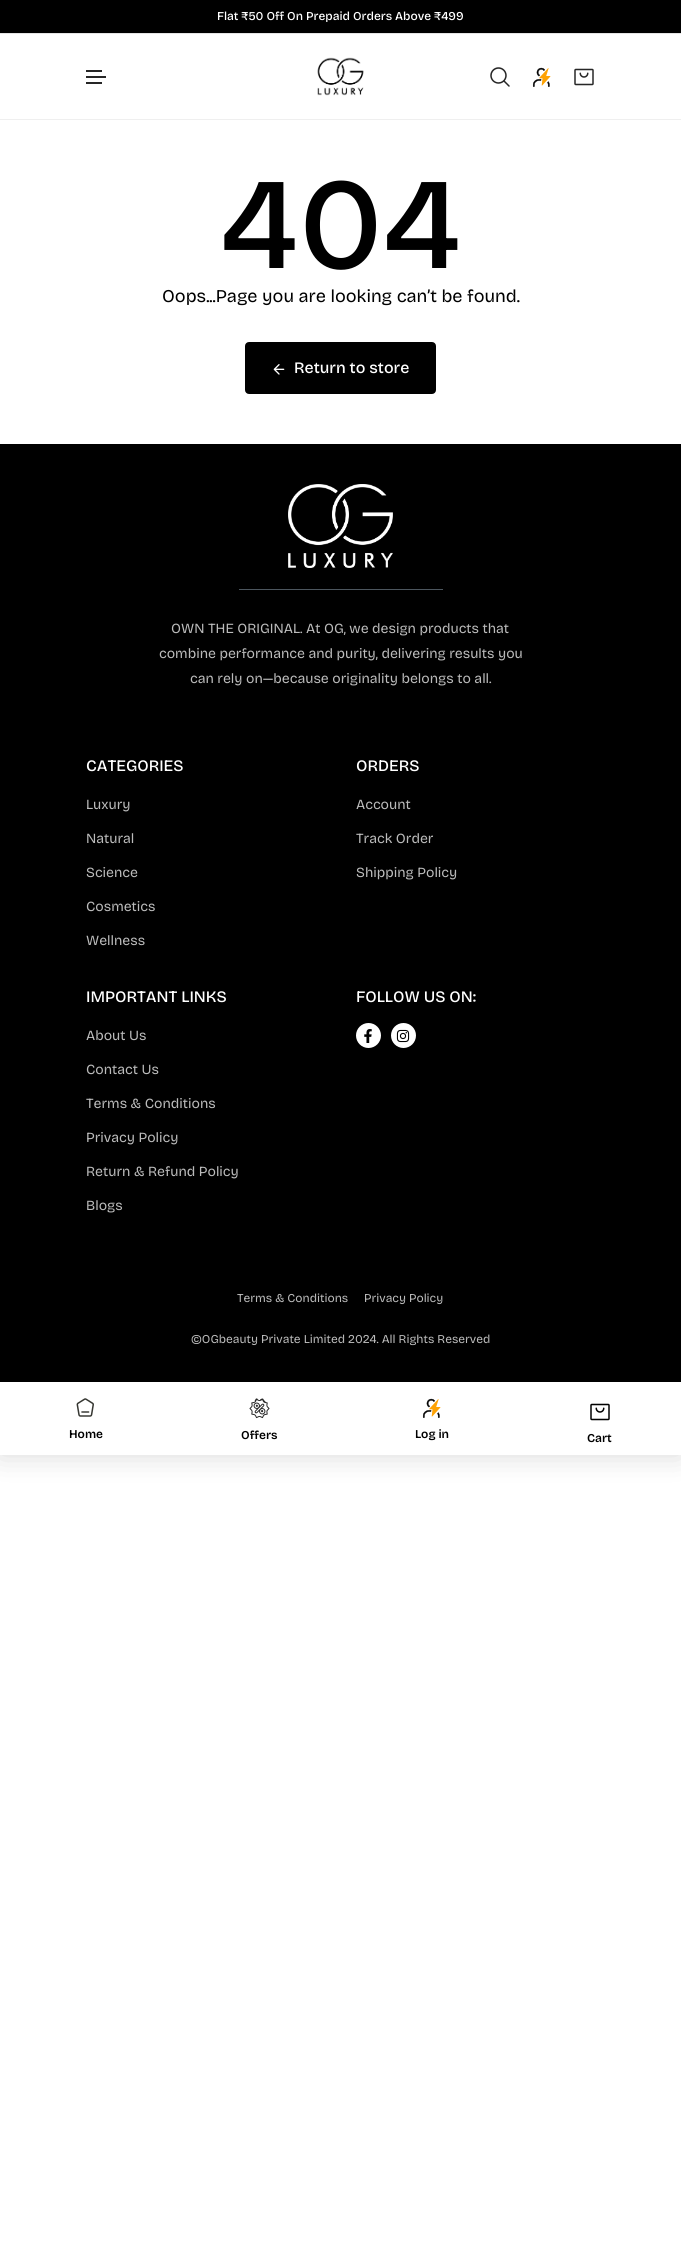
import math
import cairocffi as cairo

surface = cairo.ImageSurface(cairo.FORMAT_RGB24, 681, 2263)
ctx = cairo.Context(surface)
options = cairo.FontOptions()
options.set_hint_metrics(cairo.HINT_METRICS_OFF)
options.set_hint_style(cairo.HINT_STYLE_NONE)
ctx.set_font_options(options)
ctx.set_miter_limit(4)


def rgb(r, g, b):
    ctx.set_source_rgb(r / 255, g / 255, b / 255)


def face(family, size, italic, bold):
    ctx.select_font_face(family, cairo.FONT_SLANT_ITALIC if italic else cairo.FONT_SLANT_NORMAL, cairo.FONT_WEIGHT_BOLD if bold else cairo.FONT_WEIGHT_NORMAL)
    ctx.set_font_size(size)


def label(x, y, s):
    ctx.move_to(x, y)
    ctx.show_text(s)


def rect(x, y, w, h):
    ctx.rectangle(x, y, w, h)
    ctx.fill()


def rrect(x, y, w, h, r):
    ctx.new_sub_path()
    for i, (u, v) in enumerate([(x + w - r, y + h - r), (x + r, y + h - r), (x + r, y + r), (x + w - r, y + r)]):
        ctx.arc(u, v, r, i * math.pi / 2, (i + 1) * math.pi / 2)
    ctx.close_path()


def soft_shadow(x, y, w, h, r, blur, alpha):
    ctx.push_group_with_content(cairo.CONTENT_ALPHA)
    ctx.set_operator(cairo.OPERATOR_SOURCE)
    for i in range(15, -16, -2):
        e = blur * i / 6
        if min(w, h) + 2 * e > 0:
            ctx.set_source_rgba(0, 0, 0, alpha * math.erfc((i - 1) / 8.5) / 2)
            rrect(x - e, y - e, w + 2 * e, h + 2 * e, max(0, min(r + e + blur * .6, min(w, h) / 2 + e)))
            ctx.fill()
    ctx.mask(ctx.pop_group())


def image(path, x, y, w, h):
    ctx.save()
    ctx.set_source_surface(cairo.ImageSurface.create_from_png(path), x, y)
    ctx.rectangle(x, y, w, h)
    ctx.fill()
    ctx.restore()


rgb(255, 255, 255)
ctx.paint()
rgb(0, 0, 0)
rect(0, 0, 681, 33)
rgb(228, 228, 228)
rect(0, 33, 681, 1)
face('Bricolage Grotesque Medium', 12, 0, 0)
rgb(255, 255, 255)
label(217, 20, 'Flat ₹50 Off On Prepaid Orders Above ₹499')
rgb(239, 239, 239)
rect(0, 119, 681, 1)
rgb(38, 38, 38)
rect(86, 70, 16, 2)
rect(86, 76, 20, 2)
rect(86, 82, 16, 2)
image('image0.png', 317, 57, 47, 39)
image('image1.png', 490, 67, 20, 20)
image('image2.png', 532, 67, 19, 20)
image('image3.png', 574, 68, 20, 18)
face('Bricolage Grotesque Medium', 130, 0, 0)
rgb(0, 0, 0)
label(221, 268, '404')
face('Bricolage Grotesque', 18, 0, 0)
label(162, 302, 'Oops...Page you are looking can’t be found.')
rrect(246, 343, 189, 50, 3)
ctx.fill_preserve()
ctx.stroke()
image('image4.png', 273, 364, 12, 11)
face('Bricolage Grotesque Medium', 16, 0, 0)
rgb(255, 255, 255)
label(294, 373, 'Return to store')
rgb(0, 0, 0)
rect(0, 444, 681, 938)
image('image5.png', 288, 484, 105, 84)
rgb(76, 86, 94)
rect(239, 589, 204, 1)
face('Bricolage Grotesque', 14, 0, 0)
rgb(187, 187, 187)
label(171, 633, 'OWN THE ORIGINAL. At OG, we design products that')
label(159, 658, 'combine performance and purity, delivering results you')
label(190, 683, 'can rely on—because originality belongs to all.')
face('Bricolage Grotesque Medium', 16, 0, 0)
rgb(255, 255, 255)
label(86, 771, 'CATEGORIES')
face('Bricolage Grotesque', 14, 0, 0)
rgb(187, 187, 187)
label(86, 809, 'Luxury')
label(86, 843, 'Natural')
label(86, 877, 'Science')
label(86, 911, 'Cosmetics')
label(86, 945, 'Wellness')
face('Bricolage Grotesque Medium', 16, 0, 0)
rgb(255, 255, 255)
label(356, 771, 'ORDERS')
face('Bricolage Grotesque', 14, 0, 0)
rgb(187, 187, 187)
label(356, 809, 'Account')
label(356, 843, 'Track Order')
label(356, 877, 'Shipping Policy')
face('Bricolage Grotesque Medium', 16, 0, 0)
rgb(255, 255, 255)
label(86, 1002, 'IMPORTANT LINKS')
face('Bricolage Grotesque', 14, 0, 0)
rgb(187, 187, 187)
label(86, 1040, 'About Us')
label(86, 1074, 'Contact Us')
label(86, 1108, 'Terms & Conditions')
label(86, 1142, 'Privacy Policy')
label(86, 1176, 'Return & Refund Policy')
label(86, 1210, 'Blogs')
face('Bricolage Grotesque Medium', 16, 0, 0)
rgb(255, 255, 255)
label(356, 1002, 'FOLLOW US ON:')
ctx.new_path()
ctx.arc(368.5, 1035.5, 12.5, 0, 2 * math.pi)
ctx.fill()
image('image6.png', 364, 1029, 8, 14)
ctx.arc(403.5, 1035.5, 12.5, 0, 2 * math.pi)
ctx.fill()
image('image7.png', 396, 1029, 14, 14)
face('Bricolage Grotesque', 12, 0, 0)
rgb(187, 187, 187)
label(237, 1302, 'Terms & Conditions')
label(364, 1302, 'Privacy Policy')
label(191, 1343, '©OGbeauty Private Limited 2024. All Rights Reserved')
ctx.save()
ctx.set_fill_rule(cairo.FILL_RULE_EVEN_ODD)
ctx.new_path()
ctx.move_to(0, 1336)
ctx.line_to(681, 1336)
ctx.line_to(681, 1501)
ctx.line_to(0, 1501)
ctx.close_path()
ctx.move_to(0, 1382)
ctx.line_to(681, 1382)
ctx.line_to(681, 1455)
ctx.line_to(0, 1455)
ctx.close_path()
ctx.clip()
rgb(0, 0, 0)
soft_shadow(0, 1382, 681, 73, 0, 15, 0.15)
ctx.restore()
image('image8.png', 76, 1398, 18, 19)
face('Bricolage Grotesque SemiBold', 12, 0, 0)
rgb(0, 0, 0)
label(69, 1438, 'Home')
image('image9.png', 249, 1398, 21, 21)
label(241, 1439, 'Offers')
image('image2.png', 422, 1398, 19, 20)
label(415, 1438, 'Log in')
image('image10.png', 590, 1403, 20, 18)
label(587, 1442, 'Cart')
surface.write_to_png('render.png')
